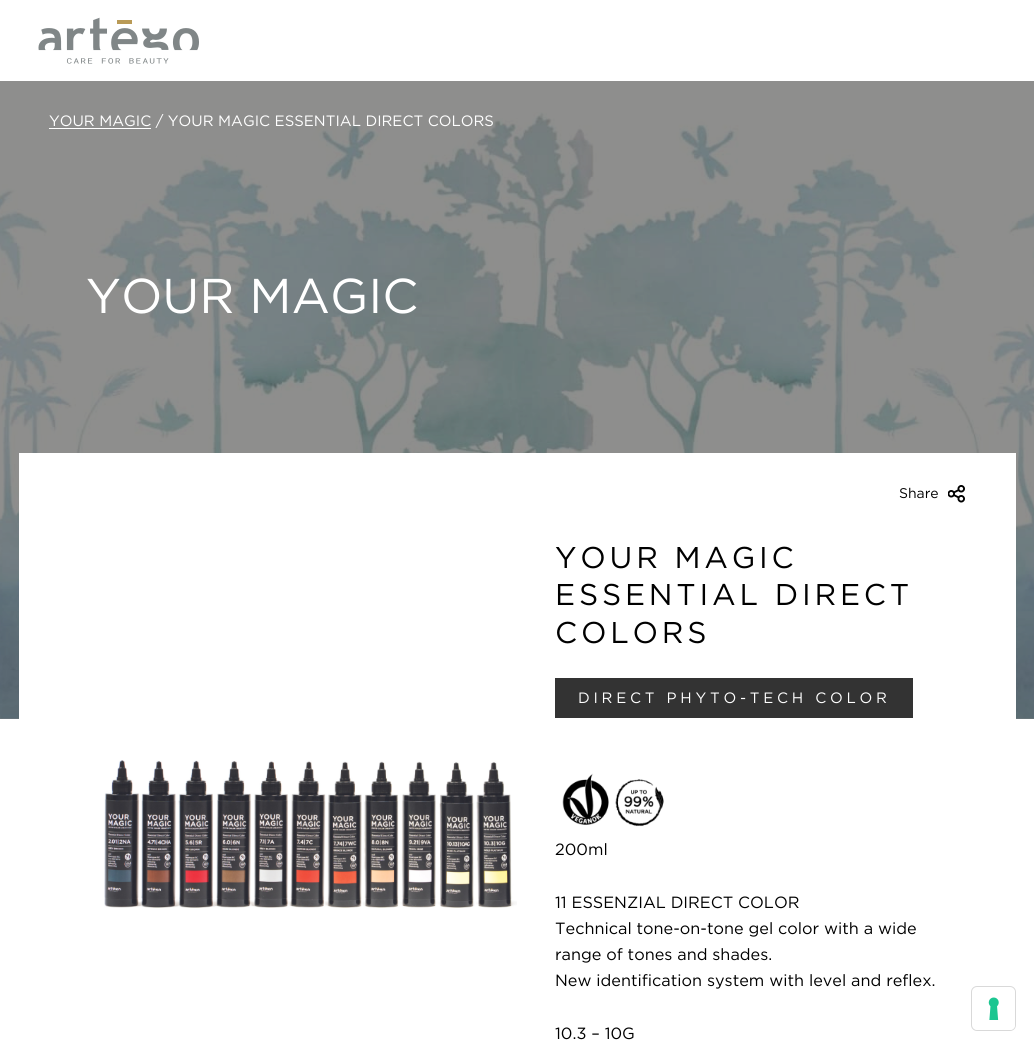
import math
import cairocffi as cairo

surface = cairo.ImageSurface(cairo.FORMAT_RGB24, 1034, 1049)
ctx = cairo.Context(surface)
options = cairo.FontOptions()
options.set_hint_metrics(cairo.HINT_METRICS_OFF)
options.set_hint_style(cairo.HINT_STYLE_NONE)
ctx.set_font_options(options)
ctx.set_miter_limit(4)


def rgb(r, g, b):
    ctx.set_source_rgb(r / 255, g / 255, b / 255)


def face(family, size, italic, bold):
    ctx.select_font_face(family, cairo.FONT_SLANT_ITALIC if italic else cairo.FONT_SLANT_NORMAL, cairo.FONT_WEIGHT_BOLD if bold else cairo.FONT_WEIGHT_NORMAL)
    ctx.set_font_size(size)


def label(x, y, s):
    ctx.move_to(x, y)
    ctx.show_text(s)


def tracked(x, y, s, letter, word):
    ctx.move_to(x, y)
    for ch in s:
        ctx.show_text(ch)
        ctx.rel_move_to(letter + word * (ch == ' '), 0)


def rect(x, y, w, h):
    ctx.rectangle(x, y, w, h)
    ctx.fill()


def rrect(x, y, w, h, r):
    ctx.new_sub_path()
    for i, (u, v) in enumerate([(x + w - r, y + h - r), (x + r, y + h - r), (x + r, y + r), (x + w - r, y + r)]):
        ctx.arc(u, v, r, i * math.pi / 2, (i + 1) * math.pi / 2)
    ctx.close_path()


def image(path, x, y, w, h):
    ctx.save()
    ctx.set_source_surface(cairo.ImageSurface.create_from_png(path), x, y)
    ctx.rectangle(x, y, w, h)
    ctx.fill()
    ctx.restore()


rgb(255, 255, 255)
ctx.paint()
rgb(142, 142, 141)
rect(0, 81, 1034, 638)
image('image0.png', 38, 17, 161, 47)
image('image1.png', 0, 112, 1034, 607)
face('Gotham', 15, 0, 0)
rgb(255, 255, 255)
label(49, 126, 'YOUR MAGIC / YOUR MAGIC ESSENTIAL DIRECT COLORS')
rect(49, 128, 102, 1)
face('Gotham', 48.75, 0, 0)
label(86, 313, 'YOUR MAGIC')
rect(19, 453, 997, 266)
face('Gotham', 14, 0, 0)
rgb(0, 0, 0)
label(899, 498, 'Share')
image('image2.png', 948, 485, 17, 18)
image('image3.png', 104, 760, 413, 148)
face('Gotham', 30, 0, 0)
tracked(555, 568, 'YOUR MAGIC', 3.8, 0)
tracked(555, 605, 'ESSENTIAL DIRECT', 3.8, 0)
tracked(555, 643, 'COLORS', 3.8, 0)
rgb(51, 51, 51)
rect(555, 678, 358, 40)
face('Gotham', 15, 0, 0)
rgb(255, 255, 255)
tracked(578, 703, 'DIRECT PHYTO-TECH COLOR', 3.75, 0)
image('image4.png', 562, 773, 102, 54)
face('Gotham', 16.25, 0, 0)
rgb(0, 0, 0)
label(555, 855, '200ml')
label(555, 908, '11 ESSENZIAL DIRECT COLOR')
label(555, 934, 'Technical tone-on-tone gel color with a wide')
label(555, 960, 'range of tones and shades.')
label(555, 986, 'New identification system with level and reflex.')
label(555, 1039, '10.3 – 10G')
rrect(971.5, 986.5, 44, 44, 5.5)
rgb(217, 217, 217)
ctx.set_line_width(1)
ctx.stroke()
rgb(255, 255, 255)
rrect(973, 988, 42, 42, 5)
ctx.fill()
image('image5.png', 988, 997, 11, 23)
surface.write_to_png('render.png')
